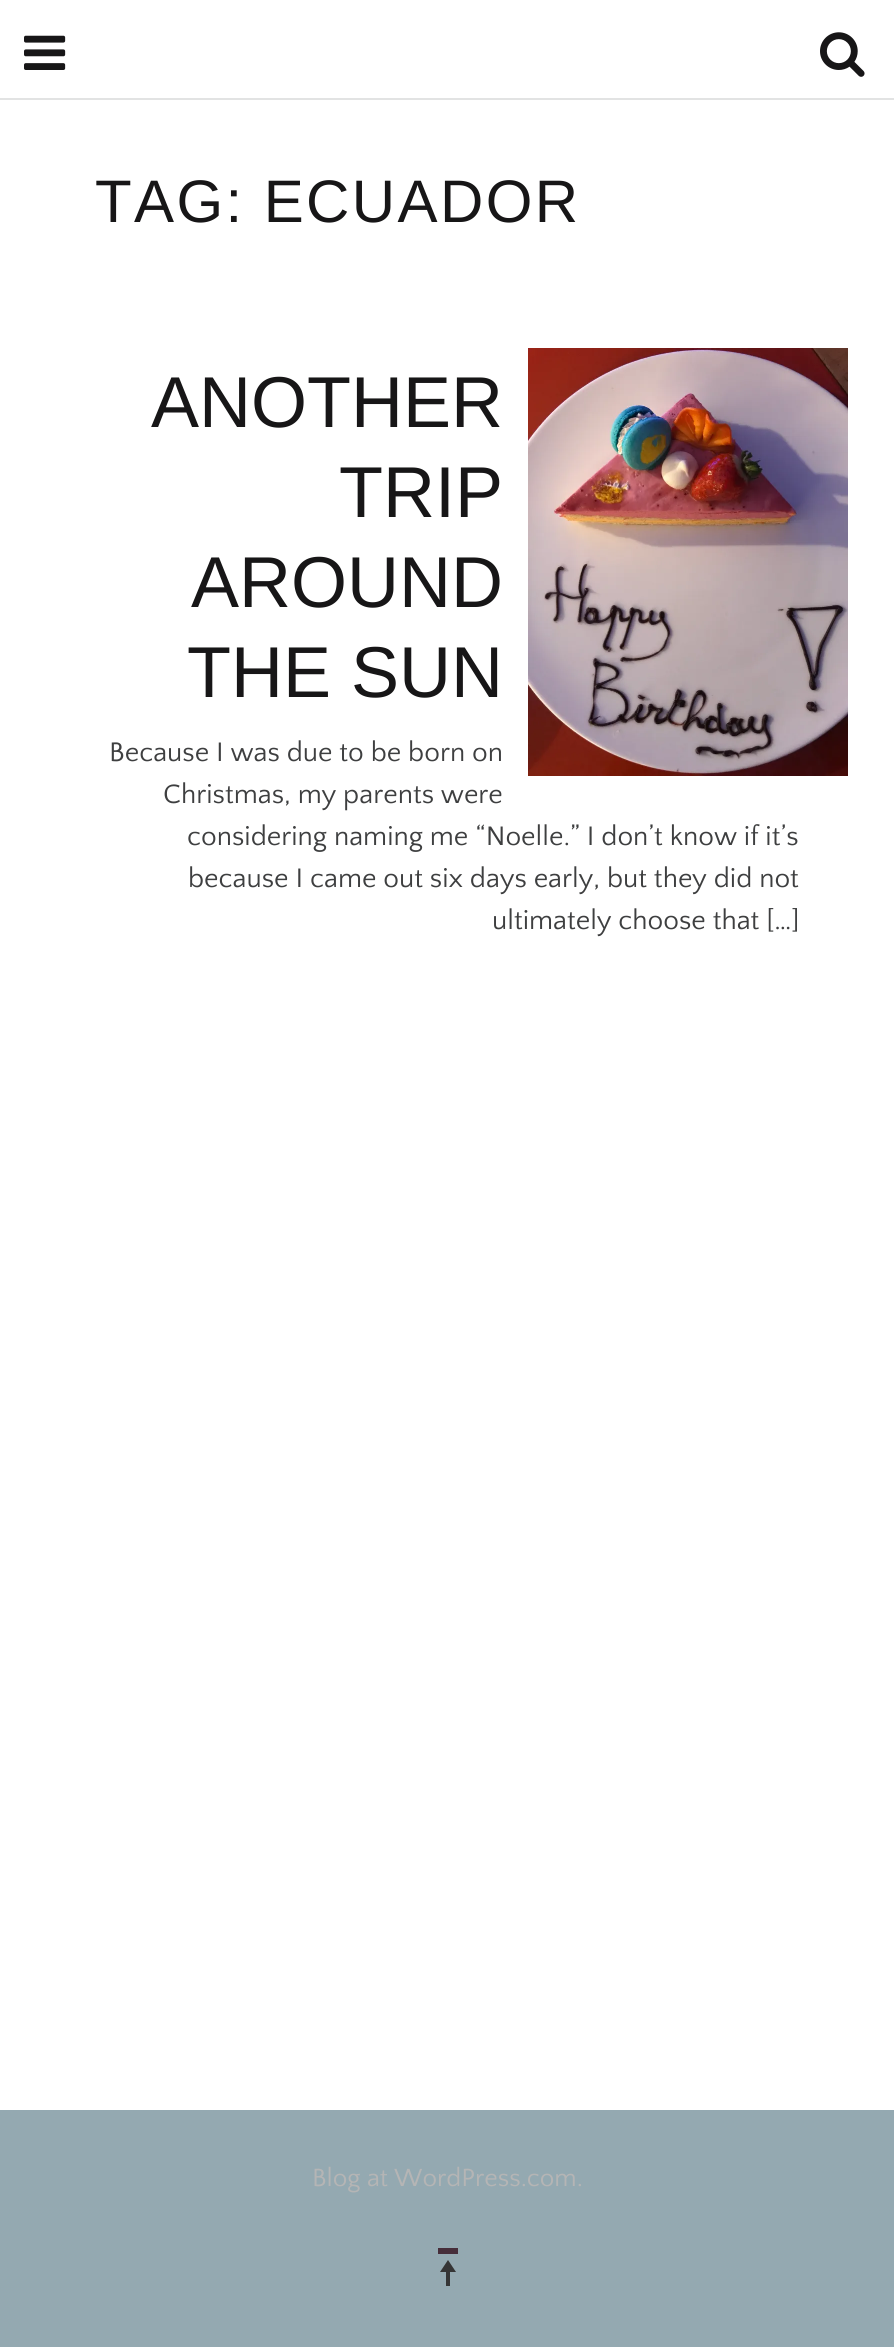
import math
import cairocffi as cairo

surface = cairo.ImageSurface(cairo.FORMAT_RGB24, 894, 2347)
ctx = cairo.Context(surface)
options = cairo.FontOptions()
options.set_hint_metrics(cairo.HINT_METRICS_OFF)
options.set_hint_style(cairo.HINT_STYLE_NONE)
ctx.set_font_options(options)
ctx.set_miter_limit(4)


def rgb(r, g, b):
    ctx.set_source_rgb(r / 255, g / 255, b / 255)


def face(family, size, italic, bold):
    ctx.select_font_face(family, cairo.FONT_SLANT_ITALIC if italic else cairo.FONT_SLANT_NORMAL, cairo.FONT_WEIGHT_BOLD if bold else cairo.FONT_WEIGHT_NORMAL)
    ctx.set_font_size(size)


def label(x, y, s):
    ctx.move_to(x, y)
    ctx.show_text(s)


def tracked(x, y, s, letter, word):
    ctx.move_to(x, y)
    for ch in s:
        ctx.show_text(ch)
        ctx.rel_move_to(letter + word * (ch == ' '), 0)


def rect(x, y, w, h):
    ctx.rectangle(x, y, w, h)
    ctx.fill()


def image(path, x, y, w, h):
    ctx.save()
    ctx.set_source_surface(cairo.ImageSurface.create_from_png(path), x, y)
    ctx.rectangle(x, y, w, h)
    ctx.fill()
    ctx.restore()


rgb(255, 255, 255)
ctx.paint()
rgb(226, 227, 227)
rect(0, 98, 894, 2)
image('image0.png', 24, 35, 42, 35)
image('image1.png', 820, 32, 45, 45)
face('Arimo', 60, 0, 0)
rgb(23, 22, 23)
tracked(95, 222, 'TAG: ECUADOR', 2.4, 0)
face('Arimo', 72, 0, 0)
label(151, 427, 'ANOTHER')
label(339, 517, 'TRIP')
label(191, 607, 'AROUND')
label(187, 697, 'THE SUN')
image('image2.png', 528, 348, 320, 428)
face('Quattrocento Sans', 28, 0, 0)
rgb(62, 63, 64)
label(109, 761, 'Because I was due to be born on')
label(163, 803, 'Christmas, my parents were')
label(187, 845, 'considering naming me “Noelle.” I don’t know if it’s')
label(188, 887, 'because I came out six days early, but they did not')
label(492, 929, 'ultimately choose that […]')
rgb(148, 169, 177)
rect(0, 2110, 894, 237)
face('Quattrocento Sans', 26, 0, 0)
rgb(181, 181, 181)
label(312, 2186, 'Blog at WordPress.com.')
rgb(70, 46, 58)
rect(438, 2248, 20, 6)
rgb(53, 53, 53)
ctx.set_fill_rule(cairo.FILL_RULE_EVEN_ODD)
ctx.new_path()
ctx.move_to(448, 2260)
ctx.line_to(456, 2272)
ctx.line_to(440, 2272)
ctx.close_path()
ctx.move_to(446, 2272)
ctx.line_to(450, 2272)
ctx.line_to(450, 2286)
ctx.line_to(446, 2286)
ctx.close_path()
ctx.fill()
surface.write_to_png('render.png')
